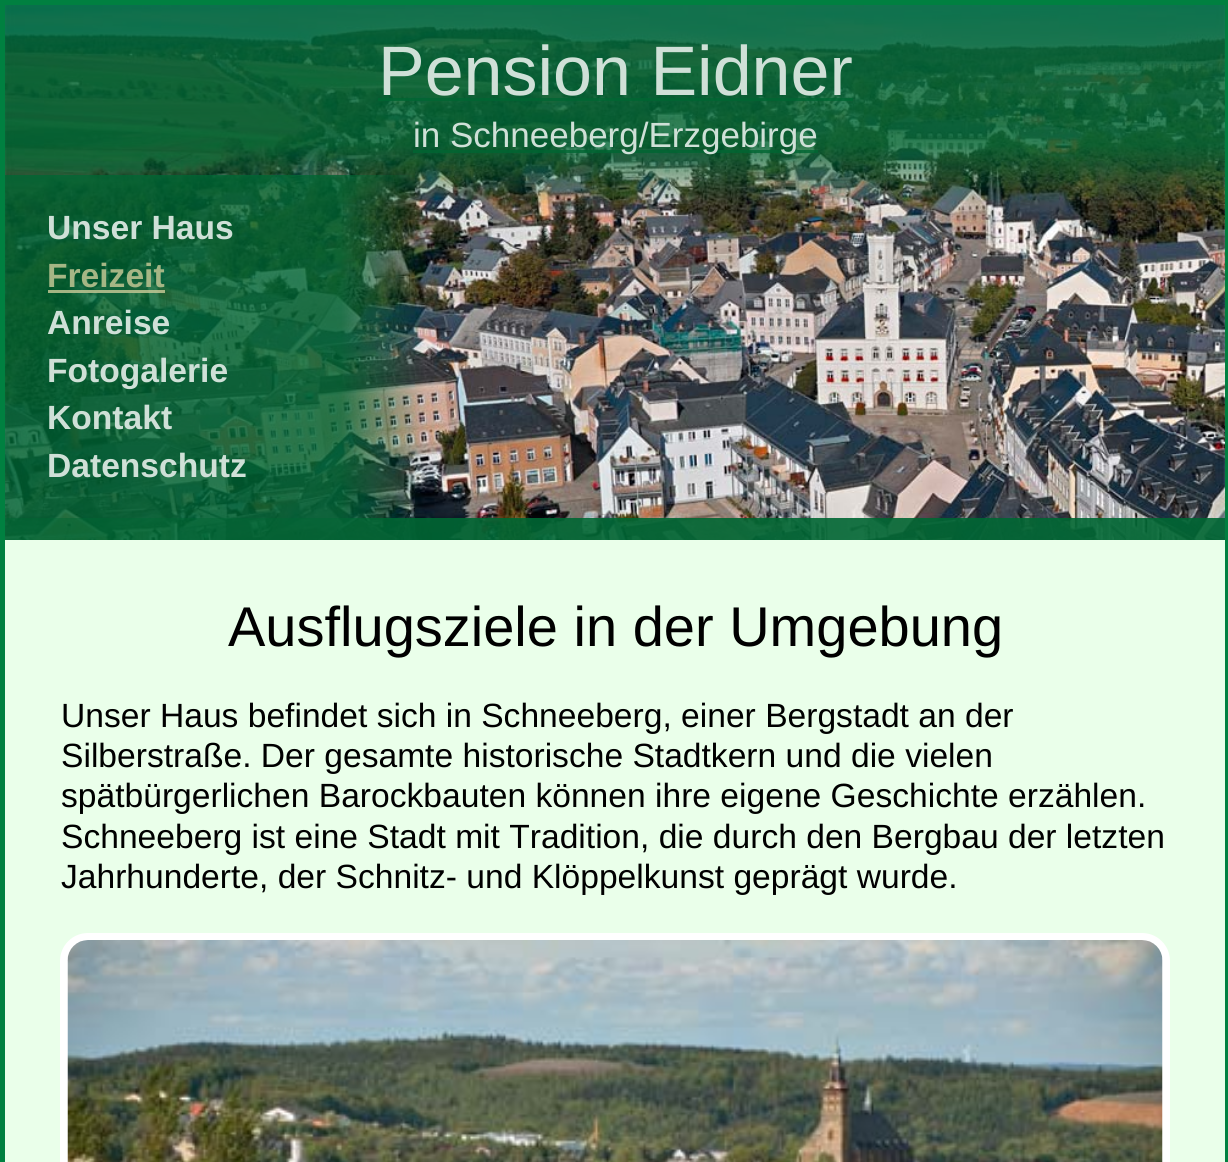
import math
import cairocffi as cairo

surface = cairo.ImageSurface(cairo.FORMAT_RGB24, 1228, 1162)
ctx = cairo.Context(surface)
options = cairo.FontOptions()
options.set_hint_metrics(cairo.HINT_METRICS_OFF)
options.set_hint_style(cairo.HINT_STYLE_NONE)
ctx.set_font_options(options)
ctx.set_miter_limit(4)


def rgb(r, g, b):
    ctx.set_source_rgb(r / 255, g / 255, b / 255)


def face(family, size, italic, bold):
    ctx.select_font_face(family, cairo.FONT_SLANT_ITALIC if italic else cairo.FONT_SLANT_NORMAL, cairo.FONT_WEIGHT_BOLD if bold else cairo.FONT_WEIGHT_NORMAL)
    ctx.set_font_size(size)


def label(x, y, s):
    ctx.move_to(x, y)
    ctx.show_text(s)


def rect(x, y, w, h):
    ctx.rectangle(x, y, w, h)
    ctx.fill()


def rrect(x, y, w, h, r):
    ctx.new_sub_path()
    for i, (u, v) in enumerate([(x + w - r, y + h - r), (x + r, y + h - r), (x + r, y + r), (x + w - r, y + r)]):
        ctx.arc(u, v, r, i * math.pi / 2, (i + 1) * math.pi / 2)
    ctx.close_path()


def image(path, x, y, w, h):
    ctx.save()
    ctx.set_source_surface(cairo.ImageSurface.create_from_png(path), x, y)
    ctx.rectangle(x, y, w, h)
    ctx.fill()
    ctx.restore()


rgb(234, 255, 234)
ctx.paint()
ctx.rectangle(2.5, 2.5, 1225, 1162)
rgb(0, 128, 64)
ctx.set_line_width(5)
ctx.stroke()
image('image0.png', 5, 5, 1220, 535)
face('Liberation Sans', 70, 0, 0)
rgb(207, 224, 215)
label(378, 95, 'Pension Eidner')
ctx.set_source_rgba(0, 0.4, 0.2, 0.8)
rect(378, 98, 475, 3)
rect(413, 150, 405, 3)
face('Liberation Sans', 35, 0, 0)
rgb(207, 224, 215)
label(413, 147, 'in Schneeberg/Erzgebirge')
face('Liberation Sans', 33.6, 0, 1)
label(47, 239, 'Unser Haus')
rgb(165, 182, 133)
label(47, 287, 'Freizeit')
ctx.set_source_rgba(0.8, 0.8, 0.6, 0.8)
rect(48, 290, 117, 3)
rgb(207, 224, 215)
label(47, 334, 'Anreise')
label(47, 382, 'Fotogalerie')
label(47, 429, 'Kontakt')
label(47, 477, 'Datenschutz')
ctx.set_source_rgba(0, 0.4, 0.2, 0.9)
rect(5, 518, 1220, 22)
face('Liberation Sans', 56, 0, 0)
rgb(0, 0, 0)
label(228, 646, 'Ausflugsziele in der Umgebung')
face('Liberation Sans', 33.6, 0, 0)
label(61, 727, 'Unser Haus befindet sich in Schneeberg, einer Bergstadt an der')
label(61, 767, 'Silberstraße. Der gesamte historische Stadtkern und die vielen')
label(61, 807, 'spätbürgerlichen Barockbauten können ihre eigene Geschichte erzählen.')
label(61, 848, 'Schneeberg ist eine Stadt mit Tradition, die durch den Bergbau der letzten')
label(61, 888, 'Jahrhunderte, der Schnitz- und Klöppelkunst geprägt wurde.')
rrect(64, 937, 1102, 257, 24)
rgb(255, 255, 255)
ctx.set_line_width(8)
ctx.stroke()
image('image1.png', 67, 940, 1096, 222)
surface.write_to_png('render.png')
